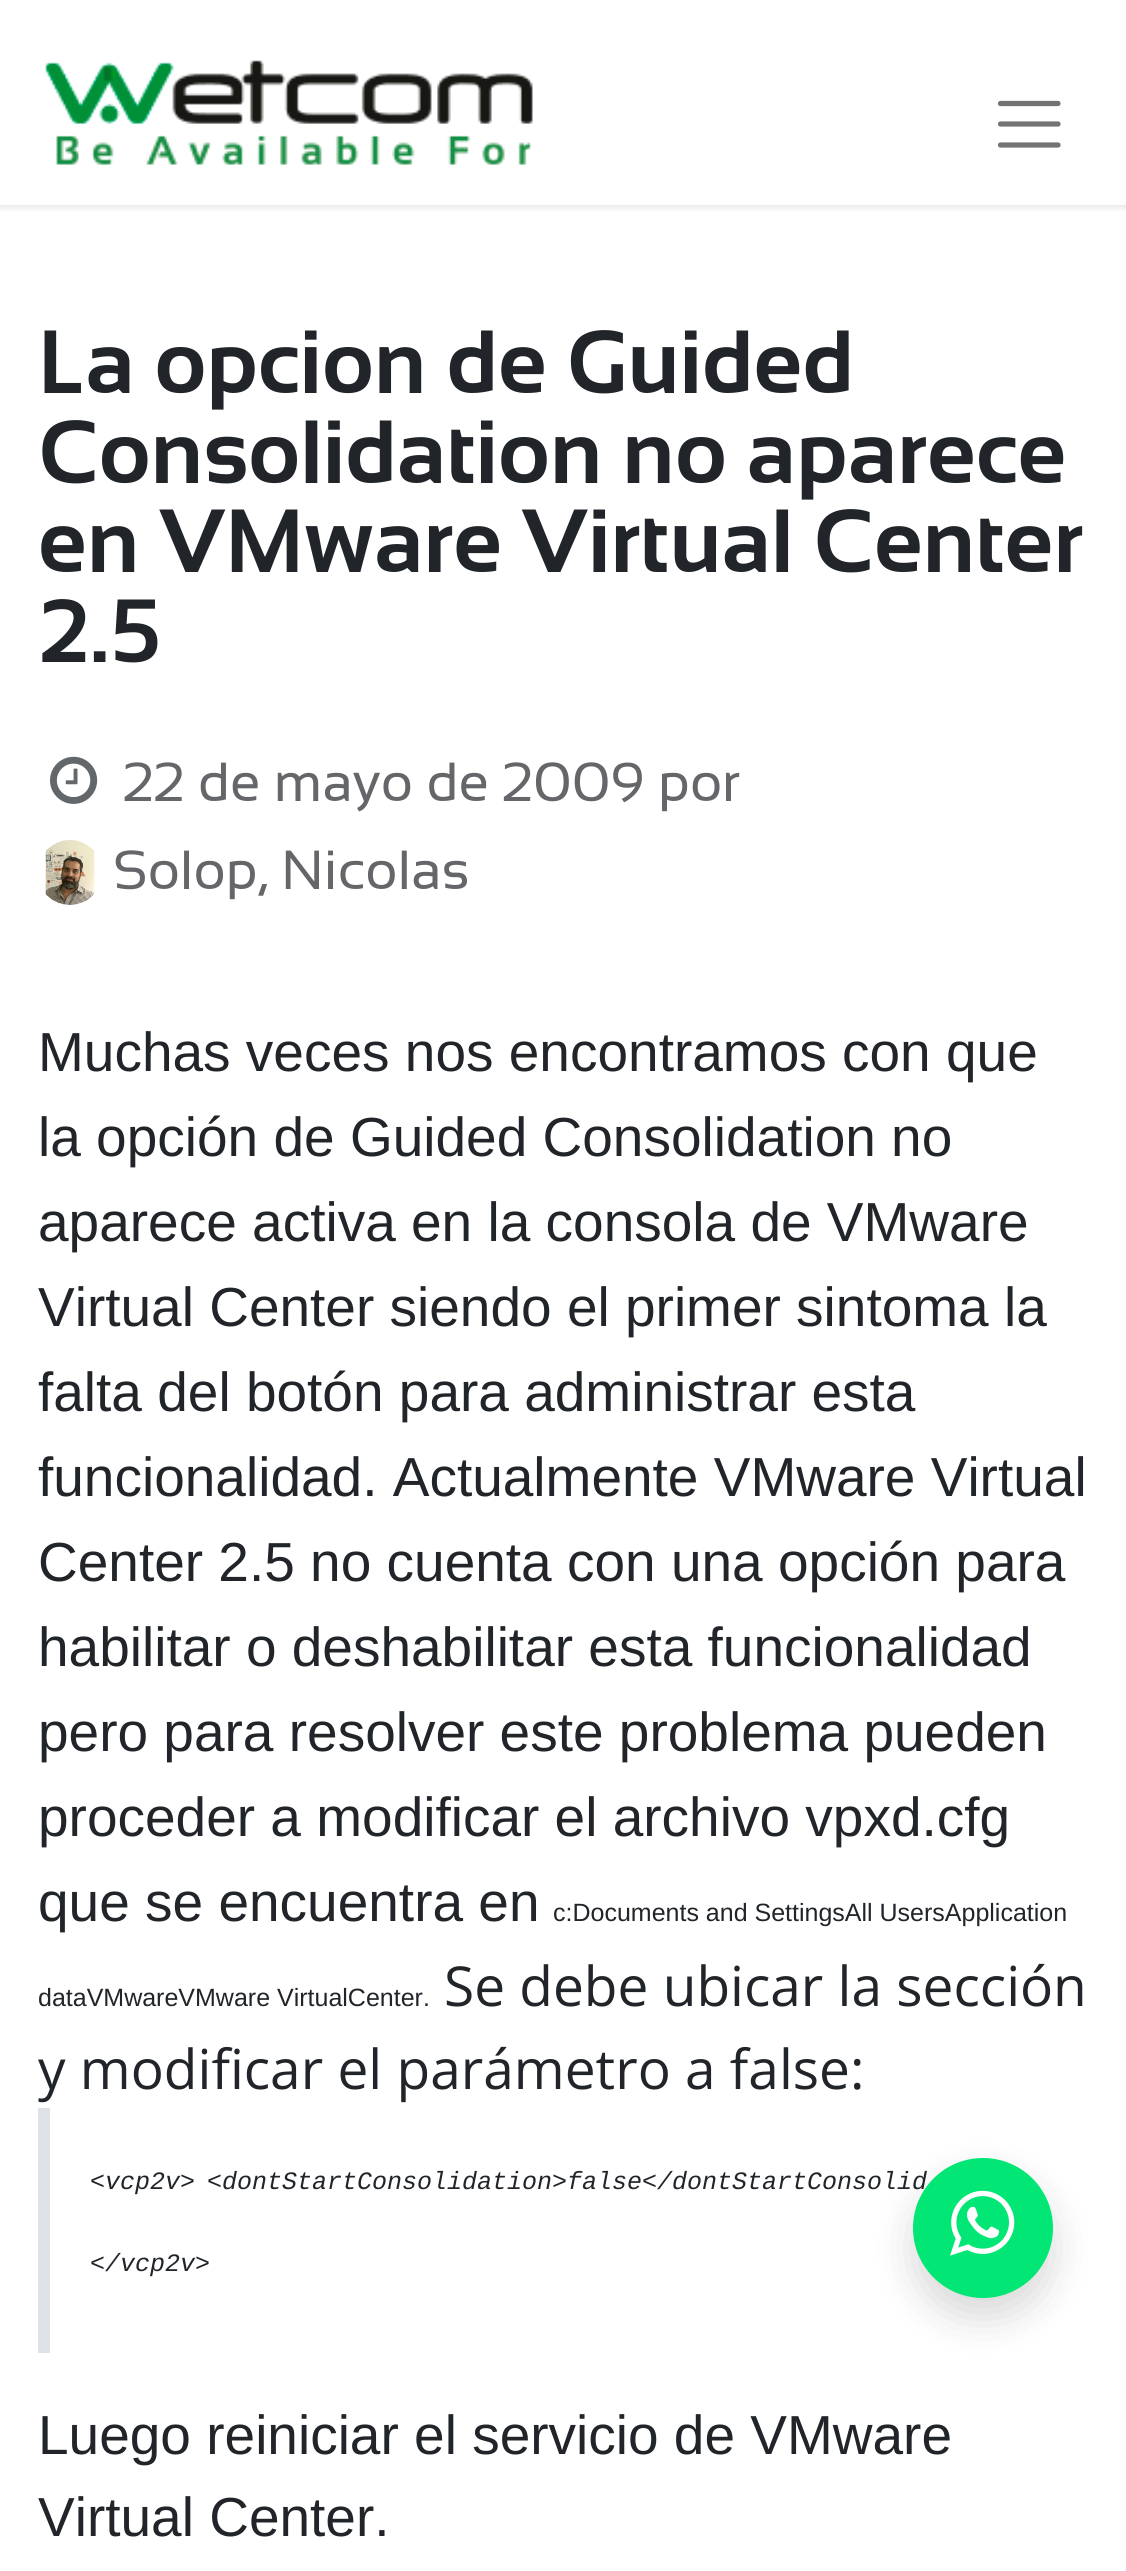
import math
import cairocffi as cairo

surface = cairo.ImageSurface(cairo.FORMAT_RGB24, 1126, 2571)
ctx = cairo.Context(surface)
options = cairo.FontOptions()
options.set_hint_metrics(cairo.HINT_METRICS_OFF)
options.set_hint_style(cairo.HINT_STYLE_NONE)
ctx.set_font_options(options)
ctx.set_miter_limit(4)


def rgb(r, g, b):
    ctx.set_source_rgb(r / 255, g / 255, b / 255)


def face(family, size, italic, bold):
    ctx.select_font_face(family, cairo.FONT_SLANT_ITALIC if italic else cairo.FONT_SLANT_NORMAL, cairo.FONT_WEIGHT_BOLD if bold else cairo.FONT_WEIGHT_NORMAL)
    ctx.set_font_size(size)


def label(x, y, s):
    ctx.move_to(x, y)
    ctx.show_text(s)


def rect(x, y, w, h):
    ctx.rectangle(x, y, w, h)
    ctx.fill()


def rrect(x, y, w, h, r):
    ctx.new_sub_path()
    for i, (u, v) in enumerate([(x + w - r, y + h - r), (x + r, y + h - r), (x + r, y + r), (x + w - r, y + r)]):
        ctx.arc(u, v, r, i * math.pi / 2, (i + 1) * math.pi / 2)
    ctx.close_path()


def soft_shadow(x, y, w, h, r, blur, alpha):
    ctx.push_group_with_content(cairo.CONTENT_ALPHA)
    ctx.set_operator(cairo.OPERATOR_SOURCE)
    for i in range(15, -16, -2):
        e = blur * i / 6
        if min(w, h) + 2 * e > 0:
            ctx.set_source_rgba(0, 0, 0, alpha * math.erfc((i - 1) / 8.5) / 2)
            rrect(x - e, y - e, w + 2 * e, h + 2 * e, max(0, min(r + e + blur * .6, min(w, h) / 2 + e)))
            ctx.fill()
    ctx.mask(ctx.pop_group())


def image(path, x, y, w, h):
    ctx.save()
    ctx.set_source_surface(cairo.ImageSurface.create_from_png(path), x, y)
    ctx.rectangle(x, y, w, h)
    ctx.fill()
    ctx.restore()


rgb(255, 255, 255)
ctx.paint()
ctx.save()
ctx.rectangle(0, 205, 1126, 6)
ctx.clip()
rgb(0, 0, 0)
soft_shadow(0, 3, 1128, 205, 0, 4, 0.1)
ctx.restore()
image('image0.png', 45, 60, 488, 105)
ctx.new_path()
ctx.move_to(1000.5, 103.5)
ctx.line_to(1058, 103.5)
ctx.move_to(1000.5, 124)
ctx.line_to(1058, 124)
ctx.move_to(1000.5, 145)
ctx.line_to(1058, 145)
rgb(115, 115, 115)
ctx.set_line_width(5.2)
ctx.set_line_cap(cairo.LINE_CAP_ROUND)
ctx.stroke()
face('Sansation', 89.5, 0, 1)
rgb(33, 37, 41)
label(38, 393, 'La opcion de Guided')
label(38, 483, 'Consolidation no aparece')
label(38, 572, 'en VMware Virtual Center')
label(38, 662, '2.5')
image('image1.png', 50, 756, 48, 48)
face('Sansation', 55, 0, 0)
rgb(100, 102, 105)
label(123, 801, '22 de mayo de 2009')
label(658, 801, 'por')
image('image2.png', 45, 840, 50, 65)
label(113, 889, 'Solop, Nicolas')
face('Liberation Sans', 55, 0, 0)
rgb(33, 37, 41)
label(38, 1071, 'Muchas veces nos encontramos con que')
label(38, 1156, 'la opción de Guided Consolidation no')
label(38, 1241, 'aparece activa en la consola de VMware')
label(38, 1326, 'Virtual Center siendo el primer sintoma la')
label(38, 1411, 'falta del botón para administrar esta')
label(38, 1496, 'funcionalidad. Actualmente VMware Virtual')
label(38, 1581, 'Center 2.5 no cuenta con una opción para')
label(38, 1666, 'habilitar o deshabilitar esta funcionalidad')
label(38, 1751, 'pero para resolver este problema pueden')
label(38, 1836, 'proceder a modificar el archivo vpxd.cfg')
label(38, 1921, 'que se encuentra en')
face('Liberation Sans', 25, 0, 0)
label(553, 1921, 'c:Documents and SettingsAll UsersApplication')
label(38, 2006, 'dataVMwareVMware VirtualCenter.')
face('Open Sans', 55, 0, 0)
label(444, 2006, 'Se debe ubicar la sección')
label(38, 2089, 'y modificar el parámetro a false:')
rgb(222, 226, 230)
rect(38, 2108, 12, 245)
face('Liberation Mono', 25, 1, 0)
rgb(33, 37, 41)
label(90, 2189, '<vcp2v>')
label(207, 2189, '<dontStartConsolidation>false</dontStartConsolid')
label(90, 2271, '</vcp2v>')
face('Liberation Sans', 55, 0, 0)
label(38, 2454, 'Luego reiniciar el servicio de VMware')
label(38, 2536, 'Virtual Center.')
rgb(0, 0, 0)
soft_shadow(913, 2178, 140, 140, 70, 20, 0.15)
rgb(1, 230, 117)
ctx.arc(983, 2228, 70, 0, 2 * math.pi)
ctx.fill()
image('image3.png', 950, 2190, 65, 66)
surface.write_to_png('render.png')
